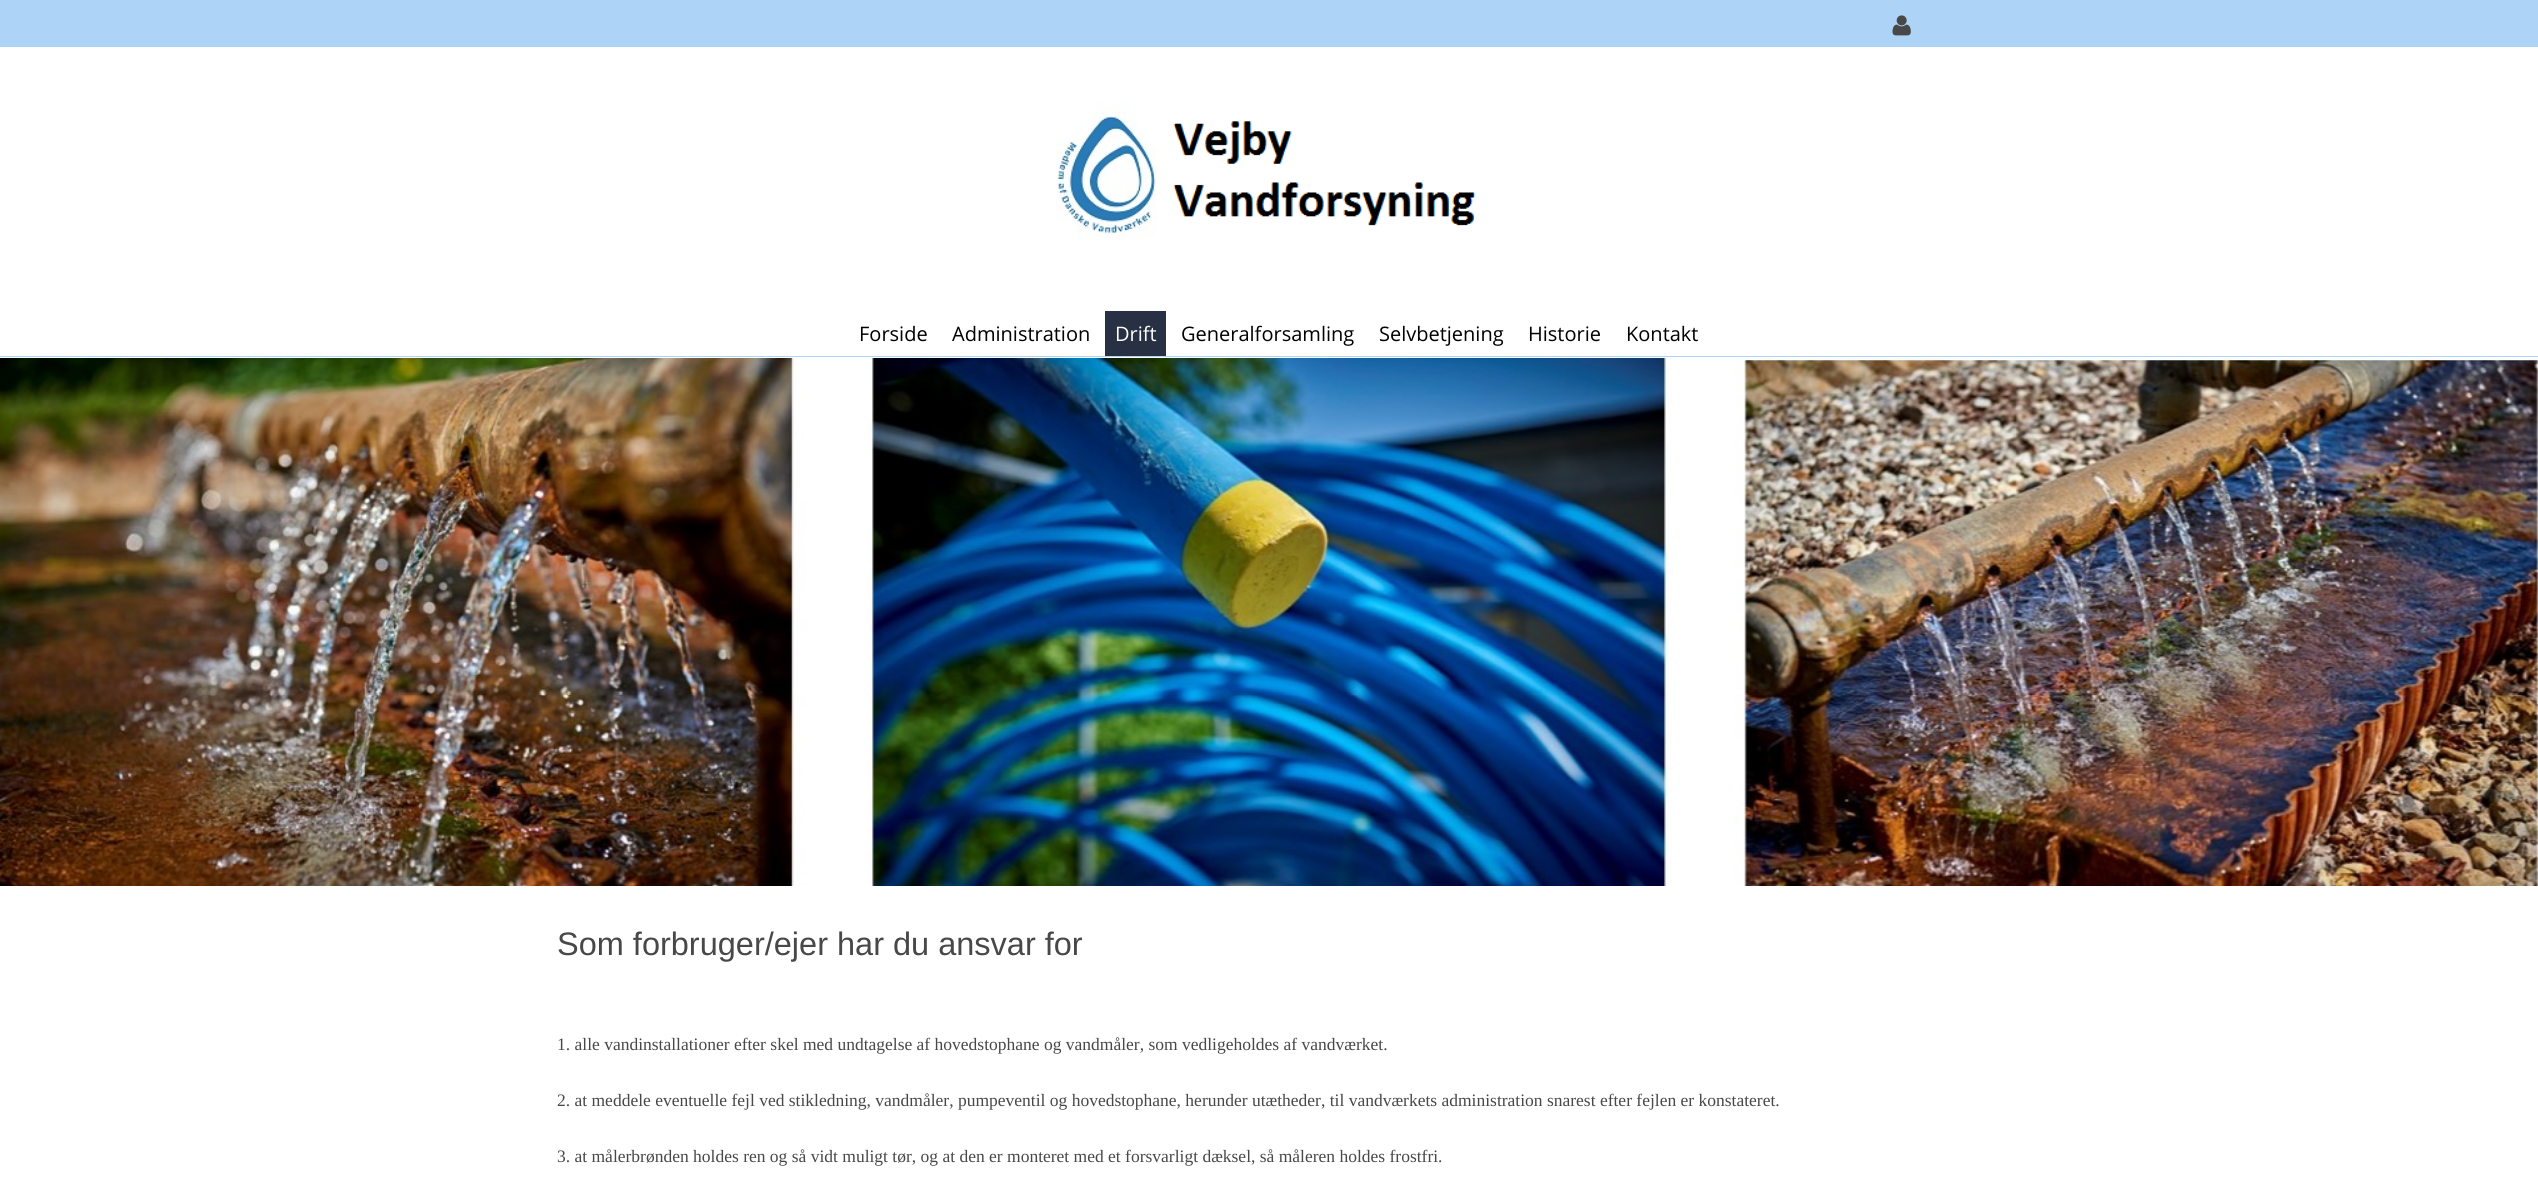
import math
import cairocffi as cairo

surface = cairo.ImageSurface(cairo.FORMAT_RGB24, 2538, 1180)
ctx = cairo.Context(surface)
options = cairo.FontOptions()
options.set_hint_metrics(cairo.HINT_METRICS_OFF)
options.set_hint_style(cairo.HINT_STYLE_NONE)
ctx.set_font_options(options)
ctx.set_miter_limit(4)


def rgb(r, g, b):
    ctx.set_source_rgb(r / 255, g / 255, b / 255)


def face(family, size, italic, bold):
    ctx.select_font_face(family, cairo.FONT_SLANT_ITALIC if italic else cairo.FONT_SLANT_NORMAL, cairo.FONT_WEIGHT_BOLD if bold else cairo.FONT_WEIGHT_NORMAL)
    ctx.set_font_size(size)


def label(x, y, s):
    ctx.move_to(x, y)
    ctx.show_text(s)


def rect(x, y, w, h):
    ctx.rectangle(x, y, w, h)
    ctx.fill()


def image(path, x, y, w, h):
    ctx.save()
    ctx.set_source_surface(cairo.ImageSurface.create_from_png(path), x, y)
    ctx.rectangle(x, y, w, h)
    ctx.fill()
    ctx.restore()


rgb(255, 255, 255)
ctx.paint()
rgb(173, 212, 247)
rect(0, 0, 2538, 47)
image('image0.png', 1892, 15, 19, 21)
rect(0, 356, 2538, 1)
image('image1.png', 1056, 100, 420, 140)
face('Open Sans', 20, 0, 0)
rgb(0, 0, 0)
label(859, 341, 'Forside')
label(952, 341, 'Administration')
rgb(40, 48, 67)
rect(1105, 311, 61, 45)
rgb(255, 255, 255)
label(1115, 341, 'Drift')
rgb(0, 0, 0)
label(1181, 341, 'Generalforsamling')
label(1379, 341, 'Selvbetjening')
label(1528, 341, 'Historie')
label(1626, 341, 'Kontakt')
image('image2.png', 0, 358, 2538, 528)
face('Liberation Sans', 32.5, 0, 0)
rgb(72, 72, 72)
label(557, 955, 'Som forbruger/ejer har du ansvar for')
face('Liberation Serif', 17.5, 0, 0)
label(557, 1050, '1. alle vandinstallationer efter skel med undtagelse af hovedstophane og vandmåler, som vedligeholdes af vandværket.')
label(557, 1106, '2. at meddele eventuelle fejl ved stikledning, vandmåler, pumpeventil og hovedstophane, herunder utætheder, til vandværkets administration snarest efter fejlen er konstateret.')
label(557, 1162, '3. at målerbrønden holdes ren og så vidt muligt tør, og at den er monteret med et forsvarligt dæksel, så måleren holdes frostfri.')
surface.write_to_png('render.png')
